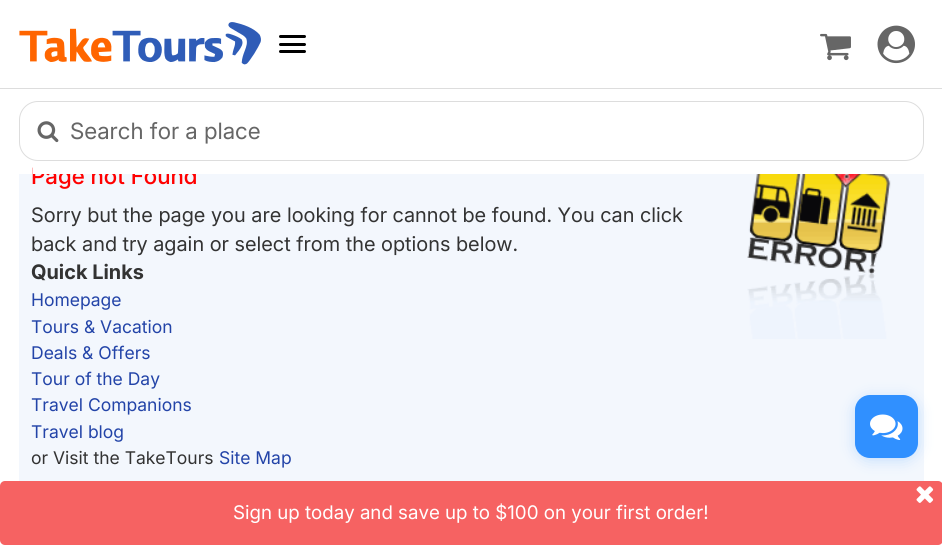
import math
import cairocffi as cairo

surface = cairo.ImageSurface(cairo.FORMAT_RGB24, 942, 545)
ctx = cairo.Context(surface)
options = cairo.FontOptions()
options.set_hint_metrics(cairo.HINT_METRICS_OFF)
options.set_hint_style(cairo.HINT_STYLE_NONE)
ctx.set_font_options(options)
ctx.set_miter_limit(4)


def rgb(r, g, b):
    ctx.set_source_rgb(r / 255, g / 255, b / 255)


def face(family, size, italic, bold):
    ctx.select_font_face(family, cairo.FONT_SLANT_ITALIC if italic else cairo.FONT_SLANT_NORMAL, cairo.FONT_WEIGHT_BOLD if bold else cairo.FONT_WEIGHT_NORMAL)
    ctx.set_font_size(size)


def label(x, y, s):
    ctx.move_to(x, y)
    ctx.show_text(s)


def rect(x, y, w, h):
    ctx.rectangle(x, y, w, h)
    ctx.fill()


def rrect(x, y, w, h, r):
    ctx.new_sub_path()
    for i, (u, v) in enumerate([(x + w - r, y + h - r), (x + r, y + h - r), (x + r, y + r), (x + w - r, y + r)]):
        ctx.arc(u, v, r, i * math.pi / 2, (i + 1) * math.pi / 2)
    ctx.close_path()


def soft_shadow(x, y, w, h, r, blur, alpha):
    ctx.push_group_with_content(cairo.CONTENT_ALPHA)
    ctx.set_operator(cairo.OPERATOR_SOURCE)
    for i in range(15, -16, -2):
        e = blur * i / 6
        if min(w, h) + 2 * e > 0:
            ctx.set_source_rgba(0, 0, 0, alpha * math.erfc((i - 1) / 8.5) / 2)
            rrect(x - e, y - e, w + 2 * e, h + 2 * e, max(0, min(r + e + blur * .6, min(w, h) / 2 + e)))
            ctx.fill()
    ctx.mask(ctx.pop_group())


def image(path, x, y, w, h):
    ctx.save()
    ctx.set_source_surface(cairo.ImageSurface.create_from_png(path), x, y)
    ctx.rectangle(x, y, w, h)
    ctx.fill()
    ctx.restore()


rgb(255, 255, 255)
ctx.paint()
rgb(243, 247, 253)
rect(19, 174, 905, 307)
face('Inter Medium', 22.5, 0, 0)
rgb(255, 0, 0)
label(31, 184, 'Page not Found')
rgb(255, 255, 255)
rect(33, 167, 164, 7)
rgb(221, 221, 221)
rect(0, 88, 942, 1)
image('image0.png', 19, 22, 242, 43)
rgb(0, 0, 0)
rrect(279, 35, 27, 3, 1.5)
ctx.fill()
rrect(279, 43, 27, 3, 1.5)
ctx.fill()
rrect(279, 50, 27, 3, 1.5)
ctx.fill()
image('image1.png', 820, 33, 31, 28)
image('image2.png', 877, 25, 38, 39)
rrect(19.5, 101.5, 904, 59, 18.5)
rgb(221, 221, 221)
ctx.set_line_width(1)
ctx.stroke()
image('image3.png', 37, 121, 22, 22)
face('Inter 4', 22.5, 0, 0)
rgb(102, 102, 102)
label(70, 139, 'Search for a place')
image('image4.png', 747, 174, 144, 165)
face('Inter', 20, 0, 0)
rgb(51, 51, 51)
label(31, 222, 'Sorry but the page you are looking for cannot be found. You can click')
label(31, 251, 'back and try again or select from the options below.')
face('Inter', 20, 0, 1)
label(31, 279, 'Quick Links')
face('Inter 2', 17.5, 0, 0)
rgb(35, 68, 168)
label(31, 306, 'Homepage')
label(31, 333, 'Tours & Vacation')
label(31, 359, 'Deals & Offers')
label(31, 385, 'Tour of the Day')
label(31, 411, 'Travel Companions')
label(31, 438, 'Travel blog')
rgb(51, 51, 51)
label(31, 464, 'or Visit the TakeTours')
rgb(35, 68, 168)
label(219, 464, 'Site Map')
rgb(246, 98, 98)
rrect(0, 481, 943, 64, 5)
ctx.fill()
rgb(48, 144, 255)
soft_shadow(855, 398, 63, 62, 15, 7.5, 0.25)
rgb(48, 144, 255)
rrect(855, 395, 63, 63, 15)
ctx.fill()
image('image5.png', 870, 414, 33, 26)
image('image6.png', 916, 486, 18, 17)
face('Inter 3', 18.75, 0, 0)
rgb(255, 255, 255)
label(233, 519, 'Sign up today and save up to $100 on your first order!')
surface.write_to_png('render.png')
